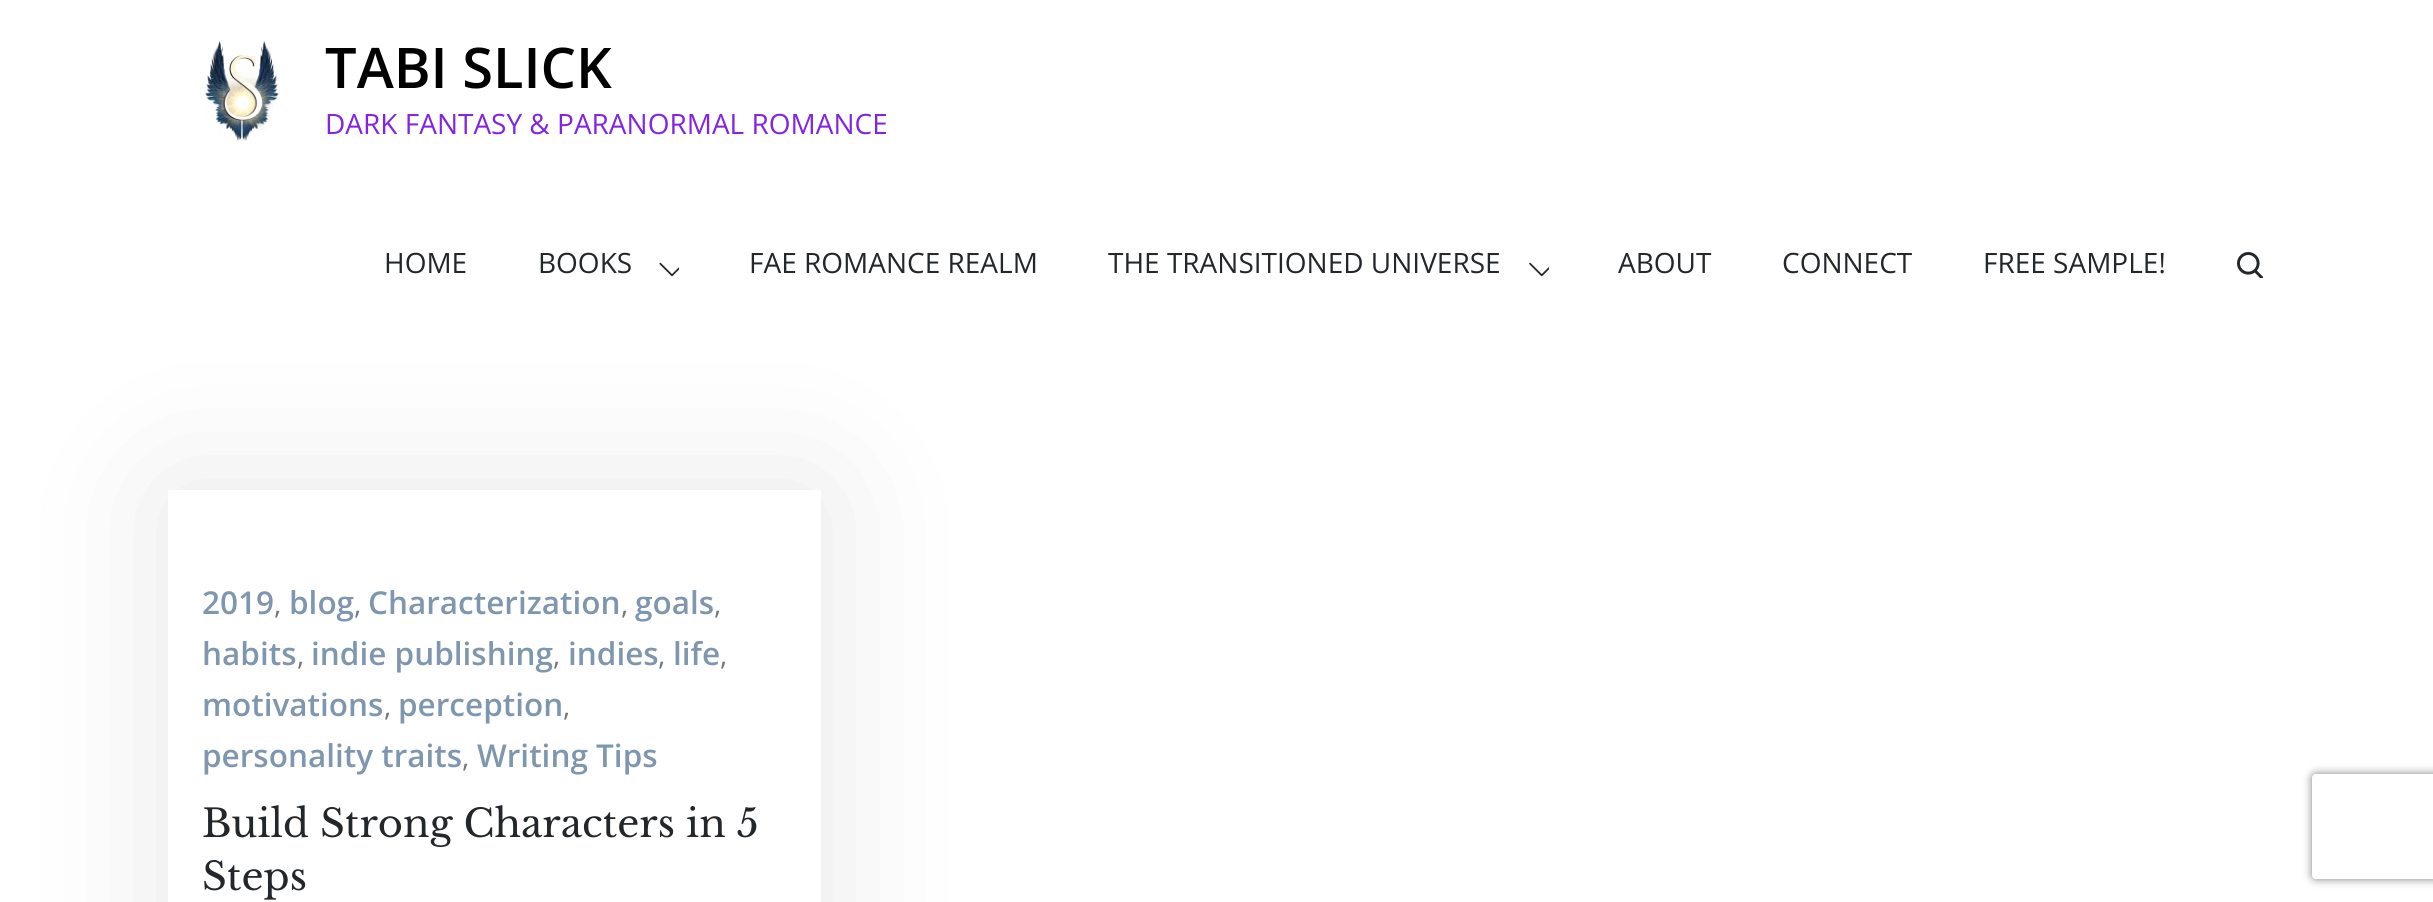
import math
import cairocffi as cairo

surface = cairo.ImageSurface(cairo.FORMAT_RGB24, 2433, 902)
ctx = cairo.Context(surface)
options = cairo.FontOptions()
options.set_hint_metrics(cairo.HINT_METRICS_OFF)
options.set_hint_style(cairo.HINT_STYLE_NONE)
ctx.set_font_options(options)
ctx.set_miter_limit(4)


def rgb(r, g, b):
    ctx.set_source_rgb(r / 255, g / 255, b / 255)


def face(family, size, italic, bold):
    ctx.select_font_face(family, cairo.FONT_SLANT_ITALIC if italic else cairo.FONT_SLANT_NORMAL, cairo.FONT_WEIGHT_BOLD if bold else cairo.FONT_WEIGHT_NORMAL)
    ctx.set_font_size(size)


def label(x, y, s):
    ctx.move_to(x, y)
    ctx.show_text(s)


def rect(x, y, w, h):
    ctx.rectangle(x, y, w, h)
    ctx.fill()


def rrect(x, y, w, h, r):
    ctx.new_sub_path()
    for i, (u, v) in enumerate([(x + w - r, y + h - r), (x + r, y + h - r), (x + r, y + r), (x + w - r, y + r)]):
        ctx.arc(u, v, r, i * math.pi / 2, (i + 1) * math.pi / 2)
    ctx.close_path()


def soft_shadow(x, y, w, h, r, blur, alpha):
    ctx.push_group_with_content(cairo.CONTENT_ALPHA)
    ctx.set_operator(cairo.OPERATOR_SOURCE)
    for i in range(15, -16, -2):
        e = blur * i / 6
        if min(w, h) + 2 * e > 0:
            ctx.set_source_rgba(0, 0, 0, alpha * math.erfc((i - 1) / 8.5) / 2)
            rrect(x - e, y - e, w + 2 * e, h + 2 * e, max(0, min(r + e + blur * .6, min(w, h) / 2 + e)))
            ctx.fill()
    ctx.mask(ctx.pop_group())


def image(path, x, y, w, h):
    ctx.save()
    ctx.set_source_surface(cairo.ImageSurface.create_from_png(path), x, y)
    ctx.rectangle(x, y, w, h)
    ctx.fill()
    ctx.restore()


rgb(255, 255, 255)
ctx.paint()
image('image0.png', 205, 40, 74, 101)
face('Open Sans SemiBold', 56, 0, 0)
rgb(0, 0, 0)
label(325, 88, 'TABI SLICK')
face('Open Sans', 28, 0, 0)
rgb(130, 36, 227)
label(325, 134, 'DARK FANTASY & PARANORMAL ROMANCE')
rgb(35, 39, 42)
label(384, 273, 'HOME')
label(538, 273, 'BOOKS')
image('image1.png', 659, 262, 20, 15)
label(749, 273, 'FAE ROMANCE REALM')
label(1108, 273, 'THE TRANSITIONED UNIVERSE')
image('image2.png', 1529, 262, 20, 15)
label(1618, 273, 'ABOUT')
label(1782, 273, 'CONNECT')
label(1983, 273, 'FREE SAMPLE!')
image('image3.png', 2237, 252, 26, 26)
rgb(0, 0, 0)
soft_shadow(168, 490, 653, 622, 0, 70, 0.1)
rgb(255, 255, 255)
rect(168, 490, 653, 412)
face('Open Sans SemiBold', 31.5, 0, 0)
rgb(126, 151, 174)
label(202, 614, '2019')
face('Open Sans', 28, 0, 0)
rgb(114, 117, 122)
label(274, 614, ',')
face('Open Sans SemiBold', 31.5, 0, 0)
rgb(126, 151, 174)
label(289, 614, 'blog')
face('Open Sans', 28, 0, 0)
rgb(114, 117, 122)
label(354, 614, ',')
face('Open Sans SemiBold', 31.5, 0, 0)
rgb(126, 151, 174)
label(368, 614, 'Characterization')
face('Open Sans', 28, 0, 0)
rgb(114, 117, 122)
label(621, 614, ',')
face('Open Sans SemiBold', 31.5, 0, 0)
rgb(126, 151, 174)
label(635, 614, 'goals')
face('Open Sans', 28, 0, 0)
rgb(114, 117, 122)
label(714, 614, ',')
face('Open Sans SemiBold', 31.5, 0, 0)
rgb(126, 151, 174)
label(202, 665, 'habits')
face('Open Sans', 28, 0, 0)
rgb(114, 117, 122)
label(297, 665, ',')
face('Open Sans SemiBold', 31.5, 0, 0)
rgb(126, 151, 174)
label(311, 665, 'indie publishing')
face('Open Sans', 28, 0, 0)
rgb(114, 117, 122)
label(553, 665, ',')
face('Open Sans SemiBold', 31.5, 0, 0)
rgb(126, 151, 174)
label(568, 665, 'indies')
face('Open Sans', 28, 0, 0)
rgb(114, 117, 122)
label(658, 665, ',')
face('Open Sans SemiBold', 31.5, 0, 0)
rgb(126, 151, 174)
label(673, 665, 'life')
face('Open Sans', 28, 0, 0)
rgb(114, 117, 122)
label(720, 665, ',')
face('Open Sans SemiBold', 31.5, 0, 0)
rgb(126, 151, 174)
label(202, 716, 'motivations')
face('Open Sans', 28, 0, 0)
rgb(114, 117, 122)
label(384, 716, ',')
face('Open Sans SemiBold', 31.5, 0, 0)
rgb(126, 151, 174)
label(398, 716, 'perception')
face('Open Sans', 28, 0, 0)
rgb(114, 117, 122)
label(563, 716, ',')
face('Open Sans SemiBold', 31.5, 0, 0)
rgb(126, 151, 174)
label(202, 767, 'personality traits')
face('Open Sans', 28, 0, 0)
rgb(114, 117, 122)
label(462, 767, ',')
face('Open Sans SemiBold', 31.5, 0, 0)
rgb(126, 151, 174)
label(477, 767, 'Writing Tips')
face('Libre Baskerville', 38.5, 0, 0)
rgb(35, 39, 42)
label(202, 837, 'Build Strong Characters in 5')
label(202, 890, 'Steps')
ctx.save()
ctx.set_fill_rule(cairo.FILL_RULE_EVEN_ODD)
ctx.new_path()
ctx.move_to(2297, 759)
ctx.line_to(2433, 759)
ctx.line_to(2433, 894)
ctx.line_to(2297, 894)
ctx.close_path()
ctx.move_to(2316, 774)
ctx.line_to(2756, 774)
ctx.curve_to(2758, 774, 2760, 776, 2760, 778)
ctx.line_to(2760, 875)
ctx.curve_to(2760, 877, 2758, 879, 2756, 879)
ctx.line_to(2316, 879)
ctx.curve_to(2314, 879, 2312, 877, 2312, 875)
ctx.line_to(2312, 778)
ctx.curve_to(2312, 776, 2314, 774, 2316, 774)
ctx.close_path()
ctx.clip()
rgb(128, 128, 128)
soft_shadow(2312, 774, 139, 105, 4, 4.5, 1)
ctx.restore()
surface.write_to_png('render.png')
